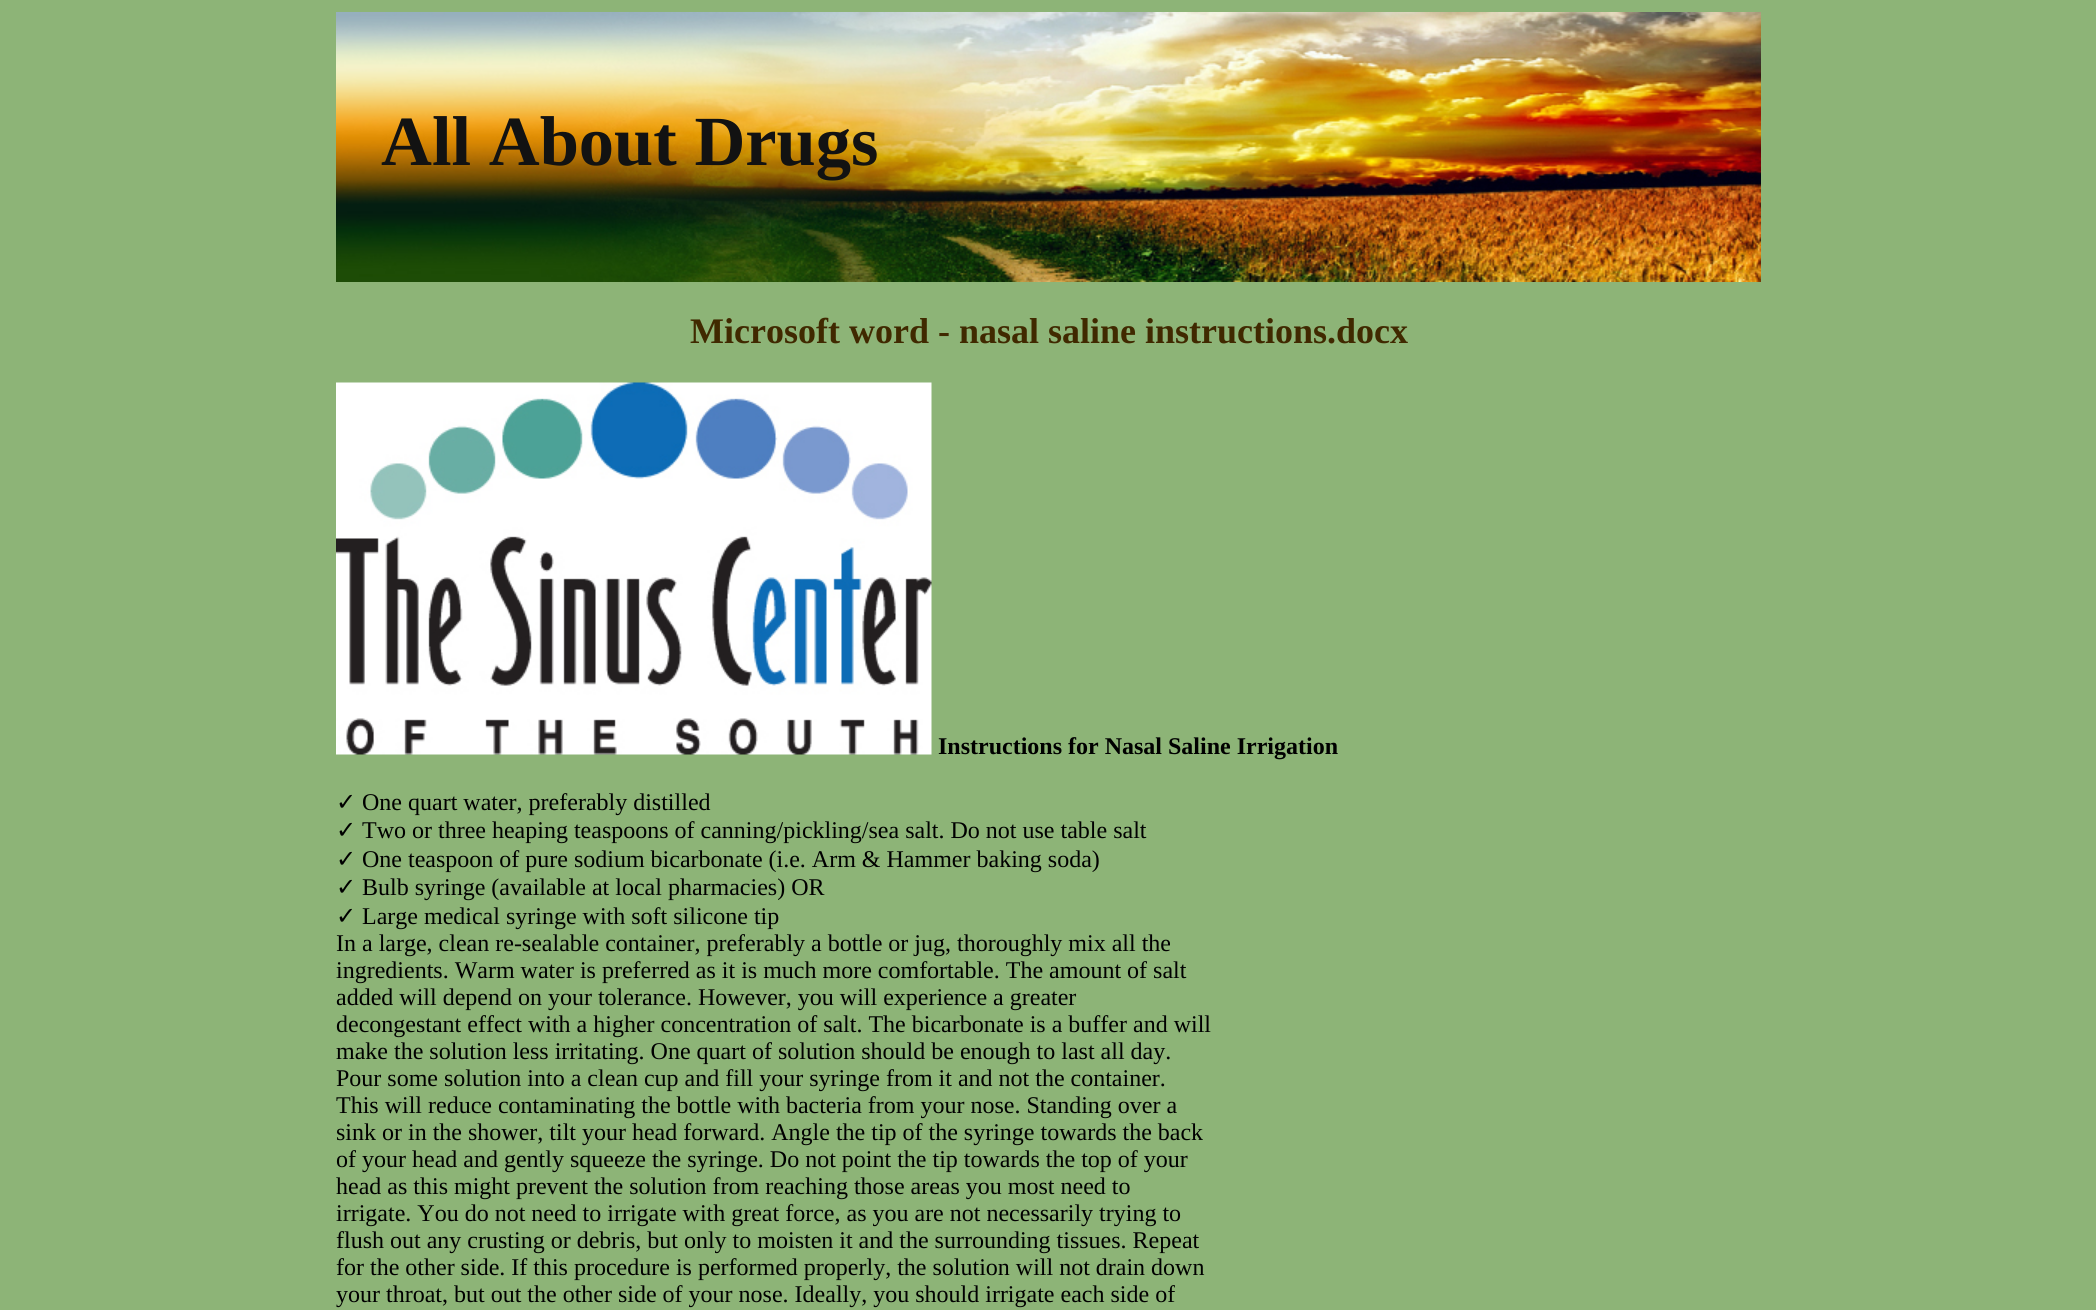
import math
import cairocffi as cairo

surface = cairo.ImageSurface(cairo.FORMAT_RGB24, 2096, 1310)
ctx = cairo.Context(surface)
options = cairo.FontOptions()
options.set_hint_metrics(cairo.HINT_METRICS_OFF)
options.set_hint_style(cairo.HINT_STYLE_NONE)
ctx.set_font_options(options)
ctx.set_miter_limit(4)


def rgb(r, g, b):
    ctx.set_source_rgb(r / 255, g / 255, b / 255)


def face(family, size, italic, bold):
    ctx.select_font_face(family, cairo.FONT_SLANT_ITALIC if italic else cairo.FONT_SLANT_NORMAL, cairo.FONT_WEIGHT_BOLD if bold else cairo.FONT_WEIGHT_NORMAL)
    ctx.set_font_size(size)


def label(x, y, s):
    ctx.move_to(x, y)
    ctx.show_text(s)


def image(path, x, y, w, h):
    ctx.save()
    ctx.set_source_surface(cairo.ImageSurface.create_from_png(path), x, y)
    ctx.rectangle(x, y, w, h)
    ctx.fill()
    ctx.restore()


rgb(141, 180, 119)
ctx.paint()
image('image0.png', 336, 12, 1425, 270)
face('Liberation Serif', 70.5, 0, 1)
rgb(18, 18, 18)
label(381, 165, 'All About Drugs')
face('Liberation Serif', 36, 0, 1)
rgb(64, 41, 0)
label(690, 343, 'Microsoft word - nasal saline instructions.docx')
image('image1.png', 336, 382, 596, 373)
face('Liberation Serif', 24, 0, 1)
rgb(0, 0, 0)
label(938, 754, 'Instructions for Nasal Saline Irrigation')
face('DejaVu Sans', 24, 0, 0)
label(336, 810, '✓')
face('Liberation Serif', 24, 0, 0)
label(362, 810, 'One quart water, preferably distilled')
face('DejaVu Sans', 24, 0, 0)
label(336, 838, '✓')
face('Liberation Serif', 24, 0, 0)
label(362, 838, 'Two or three heaping teaspoons of canning/pickling/sea salt. Do not use table salt')
face('DejaVu Sans', 24, 0, 0)
label(336, 867, '✓')
face('Liberation Serif', 24, 0, 0)
label(362, 867, 'One teaspoon of pure sodium bicarbonate (i.e. Arm & Hammer baking soda)')
face('DejaVu Sans', 24, 0, 0)
label(336, 895, '✓')
face('Liberation Serif', 24, 0, 0)
label(362, 895, 'Bulb syringe (available at local pharmacies) OR')
face('DejaVu Sans', 24, 0, 0)
label(336, 924, '✓')
face('Liberation Serif', 24, 0, 0)
label(362, 924, 'Large medical syringe with soft silicone tip')
label(336, 951, 'In a large, clean re-sealable container, preferably a bottle or jug, thoroughly mix all the')
label(336, 978, 'ingredients. Warm water is preferred as it is much more comfortable. The amount of salt')
label(336, 1005, 'added will depend on your tolerance. However, you will experience a greater')
label(336, 1032, 'decongestant effect with a higher concentration of salt. The bicarbonate is a buffer and will')
label(336, 1059, 'make the solution less irritating. One quart of solution should be enough to last all day.')
label(336, 1086, 'Pour some solution into a clean cup and fill your syringe from it and not the container.')
label(336, 1113, 'This will reduce contaminating the bottle with bacteria from your nose. Standing over a')
label(336, 1140, 'sink or in the shower, tilt your head forward. Angle the tip of the syringe towards the back')
label(336, 1167, 'of your head and gently squeeze the syringe. Do not point the tip towards the top of your')
label(336, 1194, 'head as this might prevent the solution from reaching those areas you most need to')
label(336, 1221, 'irrigate. You do not need to irrigate with great force, as you are not necessarily trying to')
label(336, 1248, 'flush out any crusting or debris, but only to moisten it and the surrounding tissues. Repeat')
label(336, 1275, 'for the other side. If this procedure is performed properly, the solution will not drain down')
label(336, 1302, 'your throat, but out the other side of your nose. Ideally, you should irrigate each side of')
surface.write_to_png('render.png')
